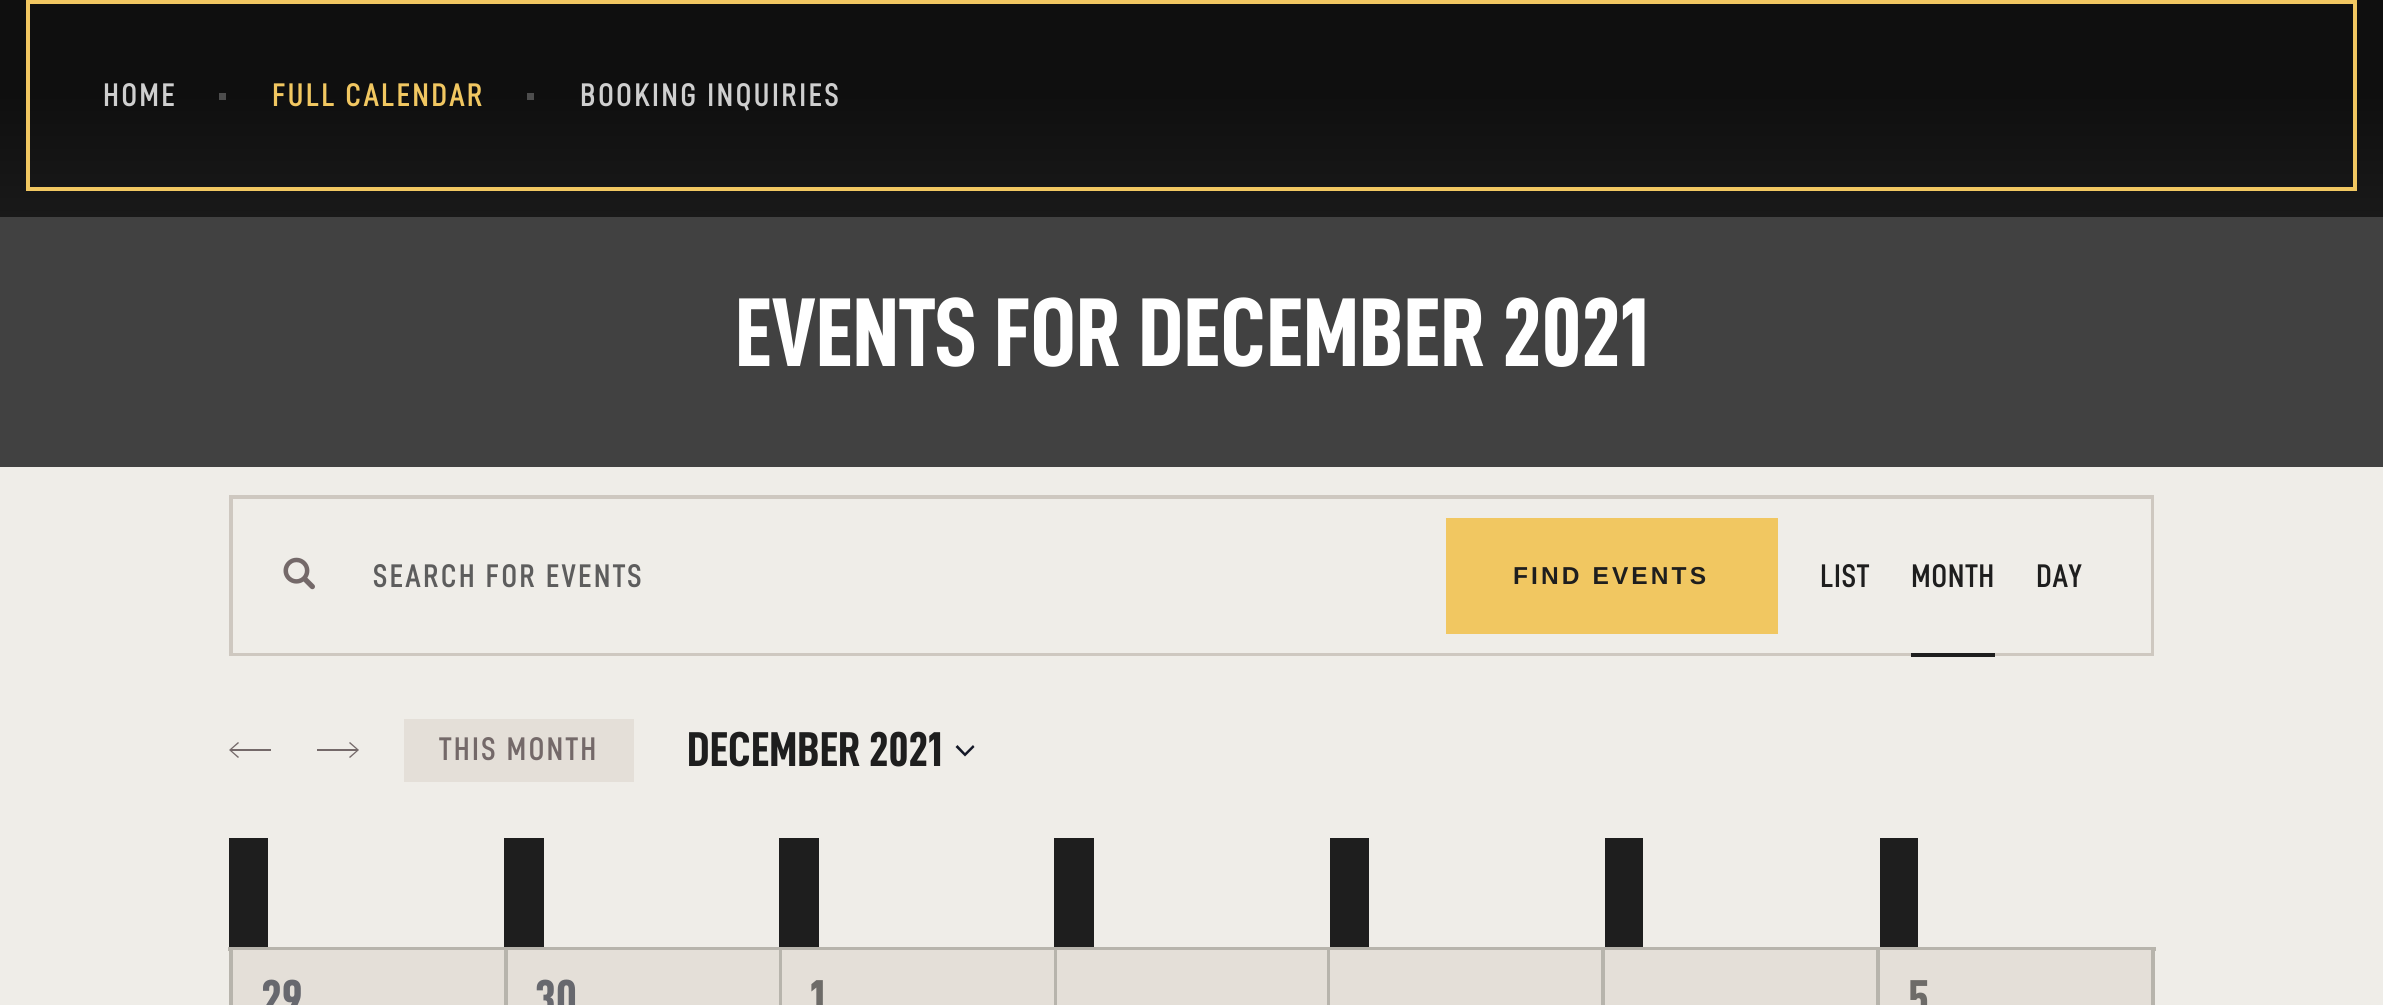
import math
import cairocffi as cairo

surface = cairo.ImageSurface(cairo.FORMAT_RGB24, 2383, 1005)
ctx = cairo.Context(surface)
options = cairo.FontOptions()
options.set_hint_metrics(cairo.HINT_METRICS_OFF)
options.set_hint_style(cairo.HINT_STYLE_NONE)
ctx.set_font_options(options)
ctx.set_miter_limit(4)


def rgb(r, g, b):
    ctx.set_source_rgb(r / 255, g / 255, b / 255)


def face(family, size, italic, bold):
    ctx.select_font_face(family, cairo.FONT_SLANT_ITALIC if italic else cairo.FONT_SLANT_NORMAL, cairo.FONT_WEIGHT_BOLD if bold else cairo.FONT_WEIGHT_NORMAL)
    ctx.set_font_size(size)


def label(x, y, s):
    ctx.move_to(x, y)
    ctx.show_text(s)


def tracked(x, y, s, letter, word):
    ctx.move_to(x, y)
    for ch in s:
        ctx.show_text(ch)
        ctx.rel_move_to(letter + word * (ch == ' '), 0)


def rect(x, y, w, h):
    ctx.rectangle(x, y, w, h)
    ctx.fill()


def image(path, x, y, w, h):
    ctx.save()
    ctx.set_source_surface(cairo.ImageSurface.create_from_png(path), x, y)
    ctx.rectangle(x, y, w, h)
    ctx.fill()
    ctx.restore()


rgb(239, 237, 232)
ctx.paint()
gradient = cairo.LinearGradient(1192, 0, 1192, 467)
gradient.add_color_stop_rgba(0.2, 0.059, 0.059, 0.059, 1)
gradient.add_color_stop_rgba(0.6, 0.118, 0.118, 0.118, 1)
ctx.set_source(gradient)
rect(0, 0, 2383, 217)
ctx.rectangle(28, 2, 2327, 187)
rgb(241, 199, 97)
ctx.set_line_width(4)
ctx.stroke()
face('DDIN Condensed', 31.5, 0, 1)
rgb(207, 207, 207)
tracked(103, 106, 'HOME', 3.1, 0)
rgb(77, 77, 77)
rect(219, 93, 7, 7)
rgb(241, 199, 97)
tracked(272, 106, 'FULL CALENDAR', 3.1, 0)
rgb(77, 77, 77)
rect(527, 93, 7, 7)
rgb(207, 207, 207)
tracked(580, 106, 'BOOKING INQUIRIES', 3.1, 0)
rgb(65, 65, 65)
rect(0, 217, 2383, 250)
face('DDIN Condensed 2', 98, 0, 1)
rgb(255, 255, 255)
label(735, 366, 'EVENTS FOR DECEMBER 2021')
ctx.rectangle(231, 497, 1921, 157)
rgb(206, 200, 192)
ctx.stroke()
rgb(239, 237, 232)
rect(233, 652, 1545, 1)
image('image0.png', 283, 557, 32, 33)
face('DDIN Condensed', 31.5, 0, 1)
rgb(93, 93, 93)
tracked(373, 587, 'SEARCH FOR EVENTS', 3.1, 0)
rgb(241, 199, 97)
rect(1446, 518, 332, 116)
face('Liberation Sans', 24.5, 0, 1)
rgb(30, 30, 30)
tracked(1513, 584, 'FIND EVENTS', 3.1, 0)
rgb(239, 237, 232)
rect(1778, 499, 373, 154)
face('DDIN Condensed', 31.5, 0, 1)
rgb(30, 30, 30)
tracked(1820, 587, 'LIST', 1.5, 0)
tracked(1911, 587, 'MONTH', 1.5, 0)
rect(1911, 653, 84, 4)
tracked(2036, 587, 'DAY', 1.5, 0)
rgb(116, 105, 105)
ctx.new_path()
ctx.move_to(271, 749)
ctx.line_to(232, 749)
ctx.line_to(239, 743)
ctx.line_to(238, 742)
ctx.line_to(229, 750)
ctx.line_to(238, 758)
ctx.line_to(239, 757)
ctx.line_to(232, 751)
ctx.line_to(271, 751)
ctx.close_path()
ctx.fill()
ctx.new_path()
ctx.move_to(317, 751)
ctx.line_to(356, 751)
ctx.line_to(349, 757)
ctx.line_to(350, 758)
ctx.line_to(359, 750)
ctx.line_to(350, 742)
ctx.line_to(349, 743)
ctx.line_to(356, 749)
ctx.line_to(317, 749)
ctx.close_path()
ctx.fill()
rgb(228, 223, 216)
rect(404, 719, 230, 63)
rgb(116, 105, 105)
tracked(439, 760, 'THIS MONTH', 3.1, 0)
face('DDIN Condensed 2', 49, 0, 1)
rgb(30, 30, 30)
label(687, 766, 'DECEMBER 2021')
rgb(20, 24, 39)
ctx.set_fill_rule(cairo.FILL_RULE_EVEN_ODD)
ctx.new_path()
ctx.move_to(957.5, 745)
ctx.line_to(965, 753)
ctx.line_to(973, 745)
ctx.line_to(974.5, 747)
ctx.line_to(965, 756.5)
ctx.line_to(955.5, 747)
ctx.close_path()
ctx.fill()
rgb(30, 30, 30)
rect(229, 838, 39, 109)
rect(504, 838, 40, 109)
rect(779, 838, 40, 109)
rect(1054, 838, 40, 109)
rect(1330, 838, 39, 109)
rect(1605, 838, 38, 109)
rect(1880, 838, 38, 109)
rgb(183, 180, 172)
rect(229, 950, 4, 55)
rect(228, 947, 1928, 4)
rgb(228, 223, 216)
rect(233, 950, 271, 55)
rgb(183, 180, 172)
rect(504, 950, 4, 55)
face('DDIN Condensed 2', 52, 0, 1)
rgb(103, 104, 110)
label(261, 1016, '29')
rgb(228, 223, 216)
rect(508, 950, 271, 55)
rgb(183, 180, 172)
rect(779, 950, 3, 55)
rgb(103, 104, 110)
label(535, 1016, '30')
rgb(228, 223, 216)
rect(782, 950, 272, 55)
rgb(183, 180, 172)
rect(1054, 950, 3, 55)
rgb(109, 107, 104)
label(810, 1016, '1')
rgb(228, 223, 216)
rect(1057, 950, 270, 55)
rgb(183, 180, 172)
rect(1327, 950, 3, 55)
rgb(228, 223, 216)
rect(1330, 950, 271, 55)
rgb(183, 180, 172)
rect(1601, 950, 4, 55)
rgb(228, 223, 216)
rect(1605, 950, 271, 55)
rgb(183, 180, 172)
rect(1876, 950, 4, 55)
rgb(228, 223, 216)
rect(1880, 950, 271, 55)
rgb(183, 180, 172)
rect(2151, 950, 4, 55)
rgb(109, 107, 104)
label(1908, 1016, '5')
surface.write_to_png('render.png')
